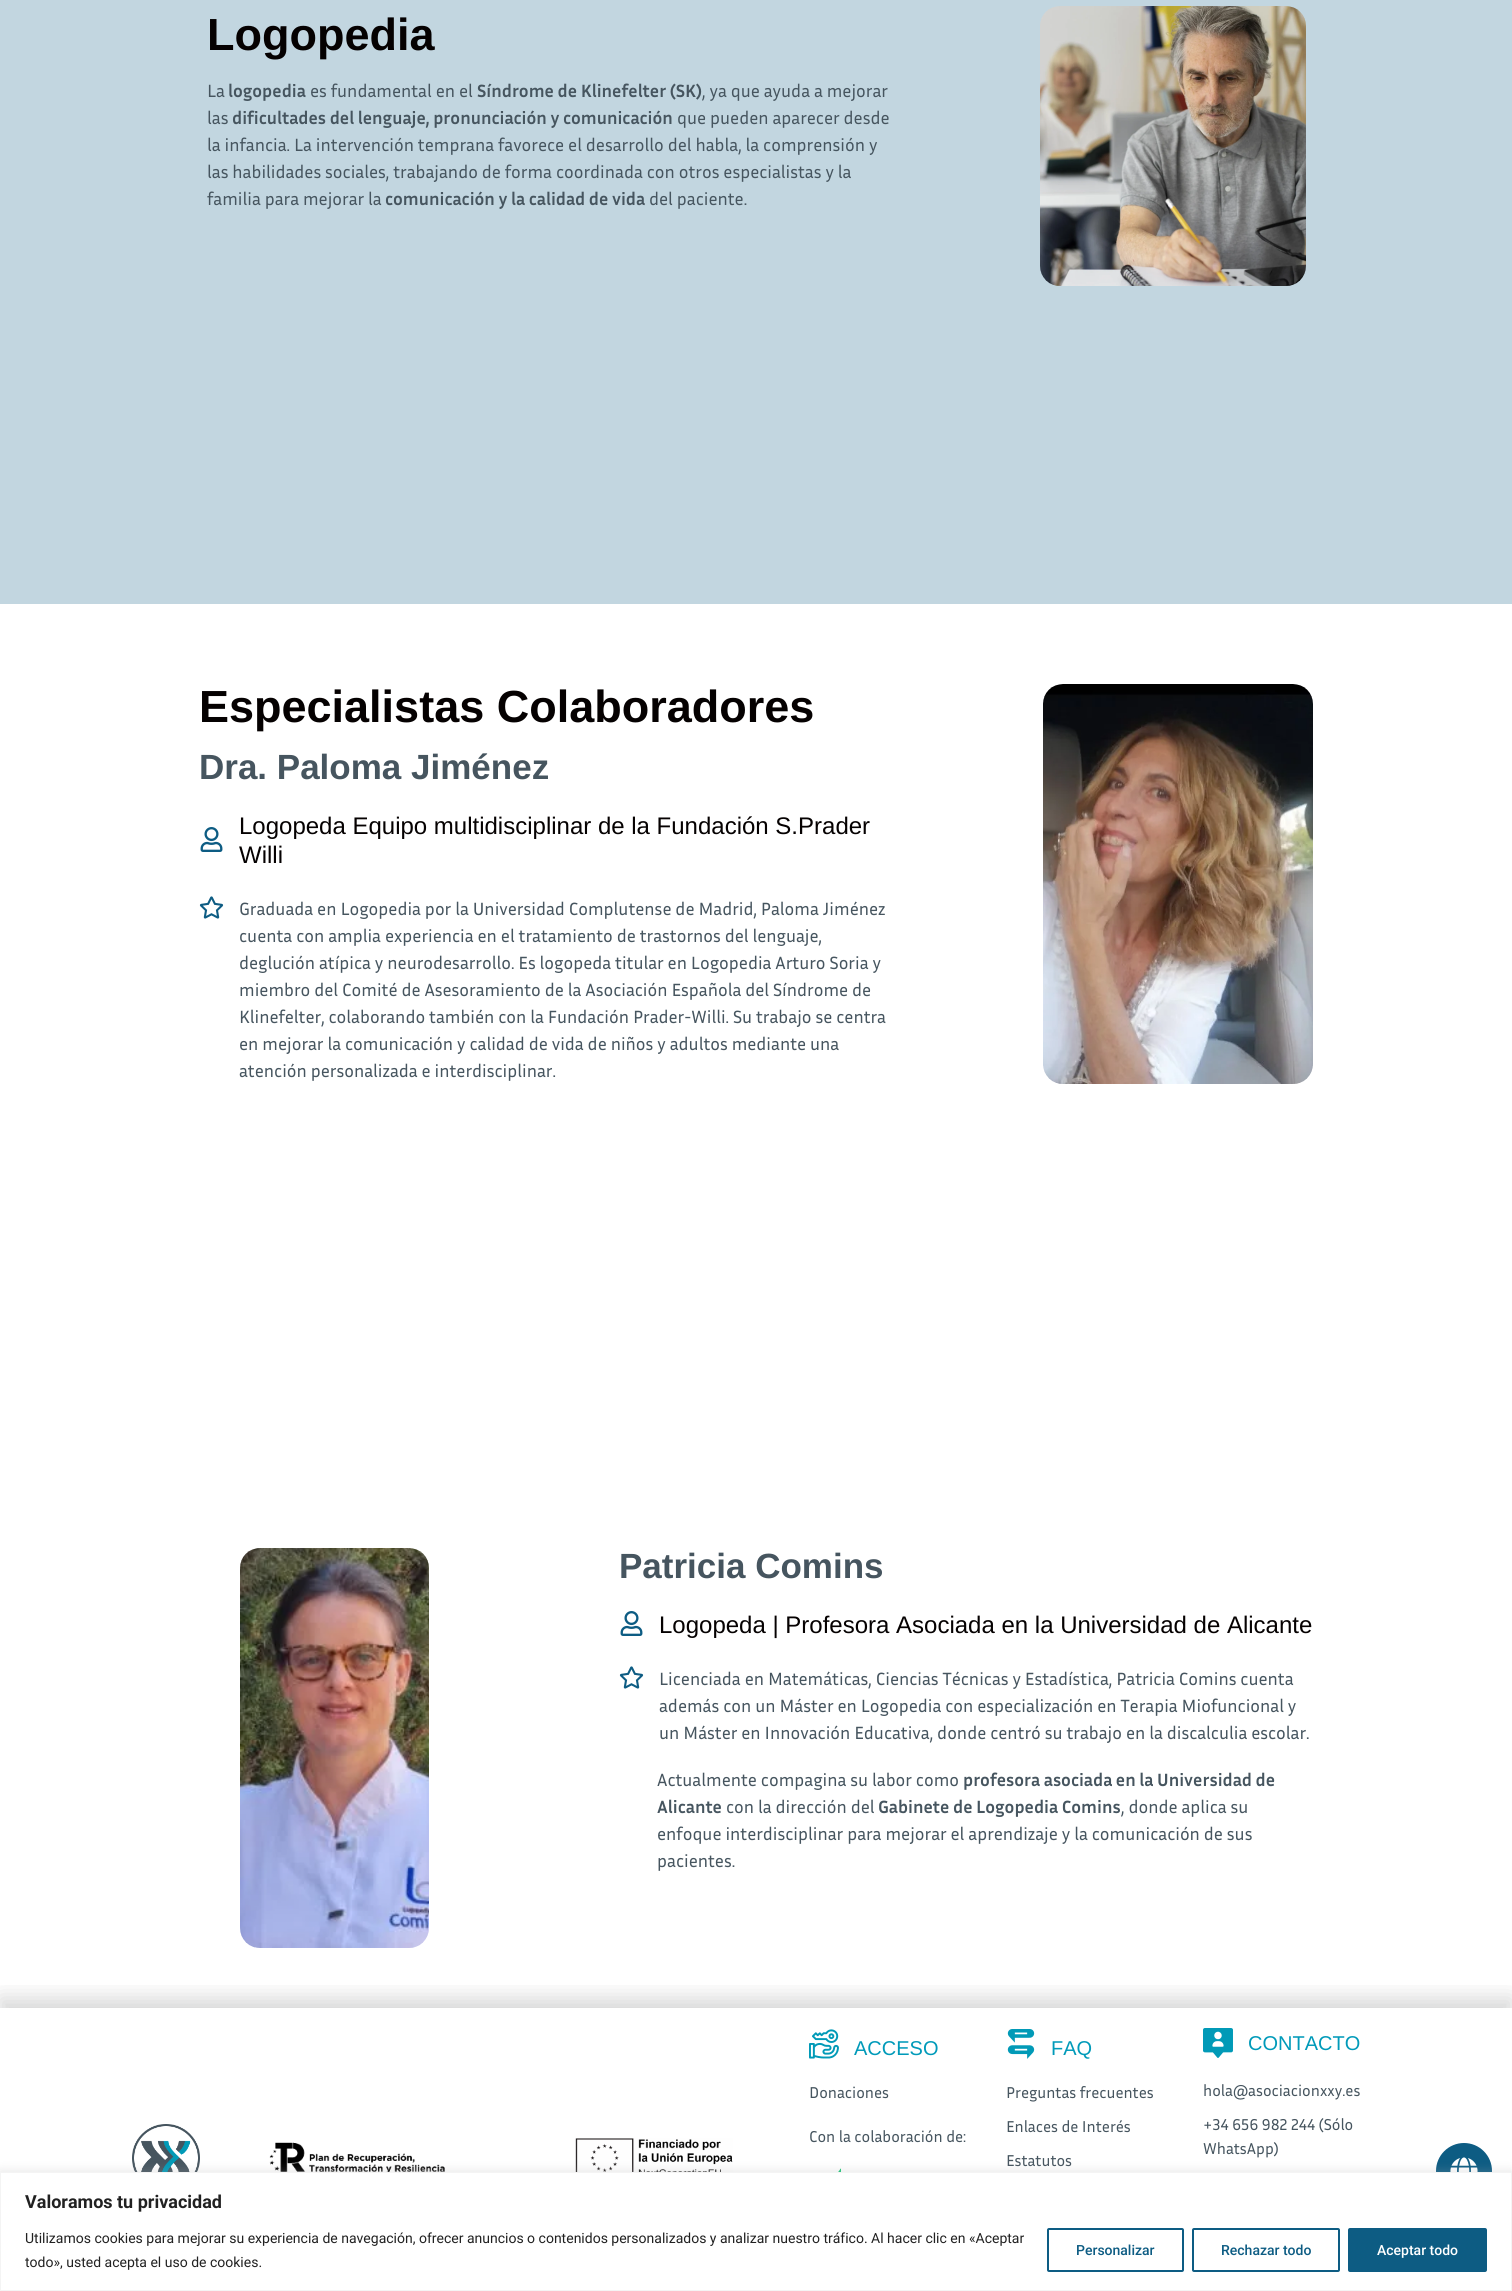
import math
import cairocffi as cairo

surface = cairo.ImageSurface(cairo.FORMAT_RGB24, 1512, 2291)
ctx = cairo.Context(surface)
options = cairo.FontOptions()
options.set_hint_metrics(cairo.HINT_METRICS_OFF)
options.set_hint_style(cairo.HINT_STYLE_NONE)
ctx.set_font_options(options)
ctx.set_miter_limit(4)


def rgb(r, g, b):
    ctx.set_source_rgb(r / 255, g / 255, b / 255)


def face(family, size, italic, bold):
    ctx.select_font_face(family, cairo.FONT_SLANT_ITALIC if italic else cairo.FONT_SLANT_NORMAL, cairo.FONT_WEIGHT_BOLD if bold else cairo.FONT_WEIGHT_NORMAL)
    ctx.set_font_size(size)


def label(x, y, s):
    ctx.move_to(x, y)
    ctx.show_text(s)


def rect(x, y, w, h):
    ctx.rectangle(x, y, w, h)
    ctx.fill()


def rrect(x, y, w, h, r):
    ctx.new_sub_path()
    for i, (u, v) in enumerate([(x + w - r, y + h - r), (x + r, y + h - r), (x + r, y + r), (x + w - r, y + r)]):
        ctx.arc(u, v, r, i * math.pi / 2, (i + 1) * math.pi / 2)
    ctx.close_path()


def soft_shadow(x, y, w, h, r, blur, alpha):
    ctx.push_group_with_content(cairo.CONTENT_ALPHA)
    ctx.set_operator(cairo.OPERATOR_SOURCE)
    for i in range(15, -16, -2):
        e = blur * i / 6
        if min(w, h) + 2 * e > 0:
            ctx.set_source_rgba(0, 0, 0, alpha * math.erfc((i - 1) / 8.5) / 2)
            rrect(x - e, y - e, w + 2 * e, h + 2 * e, max(0, min(r + e + blur * .6, min(w, h) / 2 + e)))
            ctx.fill()
    ctx.mask(ctx.pop_group())


def image(path, x, y, w, h):
    ctx.save()
    ctx.set_source_surface(cairo.ImageSurface.create_from_png(path), x, y)
    ctx.rectangle(x, y, w, h)
    ctx.fill()
    ctx.restore()


rgb(255, 255, 255)
ctx.paint()
rgb(194, 214, 224)
rect(0, 0, 1512, 604)
face('Liberation Sans', 45, 0, 1)
rgb(5, 1, 1)
label(207, 50, 'Logopedia')
face('Inria Sans', 18, 0, 0)
rgb(70, 85, 95)
label(207, 97, 'La')
face('Inria Sans', 18, 0, 1)
label(228, 97, 'logopedia')
face('Inria Sans', 18, 0, 0)
label(310, 97, 'es fundamental en el')
face('Inria Sans', 18, 0, 1)
label(477, 97, 'Síndrome de Klinefelter (SK)')
face('Inria Sans', 18, 0, 0)
label(702, 97, ', ya que ayuda a mejorar')
label(207, 124, 'las')
face('Inria Sans', 18, 0, 1)
label(232, 124, 'dificultades del lenguaje, pronunciación y comunicación')
face('Inria Sans', 18, 0, 0)
label(677, 124, 'que pueden aparecer desde')
label(207, 151, 'la infancia. La intervención temprana favorece el desarrollo del habla, la comprensión y')
label(207, 178, 'las habilidades sociales, trabajando de forma coordinada con otros especialistas y la')
label(207, 205, 'familia para mejorar la')
face('Inria Sans', 18, 0, 1)
label(385, 205, 'comunicación y la calidad de vida')
face('Inria Sans', 18, 0, 0)
label(649, 205, 'del paciente.')
image('image0.png', 1040, 6, 266, 280)
face('Liberation Sans', 45, 0, 1)
rgb(5, 1, 1)
label(199, 722, 'Especialistas Colaboradores')
face('Liberation Sans', 35, 0, 1)
rgb(70, 85, 95)
label(199, 779, 'Dra. Paloma Jiménez')
image('image1.png', 200, 827, 23, 25)
face('Liberation Sans', 24, 0, 0)
rgb(5, 1, 1)
label(239, 834, 'Logopeda Equipo multidisciplinar de la Fundación S.Prader')
label(239, 863, 'Willi')
image('image2.png', 199, 896, 25, 23)
face('Inria Sans', 18, 0, 0)
rgb(70, 85, 95)
label(239, 915, 'Graduada en Logopedia por la Universidad Complutense de Madrid, Paloma Jiménez')
label(239, 942, 'cuenta con amplia experiencia en el tratamiento de trastornos del lenguaje,')
label(239, 969, 'deglución atípica y neurodesarrollo. Es logopeda titular en Logopedia Arturo Soria y')
label(239, 996, 'miembro del Comité de Asesoramiento de la Asociación Española del Síndrome de')
label(239, 1023, 'Klinefelter, colaborando también con la Fundación Prader-Willi. Su trabajo se centra')
label(239, 1050, 'en mejorar la comunicación y calidad de vida de niños y adultos mediante una')
label(239, 1077, 'atención personalizada e interdisciplinar.')
image('image3.png', 1043, 684, 270, 400)
image('image4.png', 240, 1548, 189, 400)
face('Liberation Sans', 35, 0, 1)
label(619, 1578, 'Patricia Comins')
image('image1.png', 620, 1611, 23, 25)
face('Liberation Sans', 24, 0, 0)
rgb(5, 1, 1)
label(659, 1633, 'Logopeda | Profesora Asociada en la Universidad de Alicante')
image('image2.png', 619, 1666, 25, 23)
face('Inria Sans', 18, 0, 0)
rgb(70, 85, 95)
label(659, 1685, 'Licenciada en Matemáticas, Ciencias Técnicas y Estadística, Patricia Comins cuenta')
label(659, 1712, 'además con un Máster en Logopedia con especialización en Terapia Miofuncional y')
label(659, 1739, 'un Máster en Innovación Educativa, donde centró su trabajo en la discalculia escolar.')
label(657, 1786, 'Actualmente compagina su labor como')
face('Inria Sans', 18, 0, 1)
label(963, 1786, 'profesora asociada en la Universidad de')
label(657, 1813, 'Alicante')
face('Inria Sans', 18, 0, 0)
label(726, 1813, 'con la dirección del')
face('Inria Sans', 18, 0, 1)
label(878, 1813, 'Gabinete de Logopedia Comins')
face('Inria Sans', 18, 0, 0)
label(1121, 1813, ', donde aplica su')
label(657, 1840, 'enfoque interdisciplinar para mejorar el aprendizaje y la comunicación de sus')
label(657, 1867, 'pacientes.')
ctx.save()
ctx.rectangle(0, 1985, 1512, 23)
ctx.clip()
rgb(0, 0, 0)
soft_shadow(0, 1998, 1512, 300, 0, 11, 0.16)
ctx.restore()
image('image5.png', 132, 2124, 68, 48)
image('image6.png', 269, 2142, 176, 30)
image('image7.png', 575, 2138, 158, 34)
image('image8.png', 809, 2029, 30, 30)
face('Liberation Sans', 20, 0, 0)
rgb(0, 154, 185)
label(854, 2055, 'ACCESO')
face('Inria Sans', 16, 0, 0)
rgb(70, 85, 95)
label(809, 2098, 'Donaciones')
label(809, 2142, 'Con la colaboración de:')
image('image9.png', 838, 2168, 3, 4)
image('image10.png', 1007, 2029, 28, 30)
face('Liberation Sans', 20, 0, 0)
rgb(0, 154, 185)
label(1051, 2055, 'FAQ')
face('Inria Sans', 16, 0, 0)
rgb(70, 85, 95)
label(1006, 2098, 'Preguntas frecuentes')
label(1006, 2132, 'Enlaces de Interés')
label(1006, 2166, 'Estatutos')
image('image11.png', 1203, 2028, 30, 30)
face('Liberation Sans', 20, 0, 0)
rgb(0, 154, 185)
label(1248, 2050, 'CONTACTO')
face('Inria Sans', 16, 0, 0)
rgb(70, 85, 95)
label(1203, 2096, 'hola@asociacionxxy.es')
label(1203, 2130, '+34 656 982 244 (Sólo')
label(1203, 2154, 'WhatsApp)')
rgb(13, 92, 131)
ctx.new_path()
ctx.arc(1464, 2171, 28, 0, 2 * math.pi)
ctx.fill()
image('image12.png', 1450, 2157, 28, 15)
rgb(172, 171, 171)
soft_shadow(0, 2171, 1512, 119, 0, 5, 0.3)
rgb(255, 255, 255)
ctx.rectangle(0.5, 2172.5, 1511, 118)
ctx.fill_preserve()
rgb(244, 244, 244)
ctx.set_line_width(1)
ctx.stroke()
face('Roboto', 18, 0, 1)
rgb(33, 33, 33)
label(25, 2208, 'Valoramos tu privacidad')
face('Roboto', 14, 0, 0)
label(25, 2243, 'Utilizamos cookies para mejorar su experiencia de navegación, ofrecer anuncios o contenidos personalizados y analizar nuestro tráfico. Al hacer clic en «Aceptar')
label(25, 2267, 'todo», usted acepta el uso de cookies.')
rrect(1048, 2229, 135, 42, 1)
rgb(13, 92, 131)
ctx.set_line_width(2)
ctx.stroke()
face('Roboto Medium', 14, 0, 0)
label(1076, 2255, 'Personalizar')
rrect(1193, 2229, 146, 42, 1)
ctx.stroke()
label(1221, 2255, 'Rechazar todo')
rrect(1349, 2229, 137, 42, 1)
ctx.fill_preserve()
ctx.stroke()
rgb(255, 255, 255)
label(1377, 2255, 'Aceptar todo')
surface.write_to_png('render.png')
